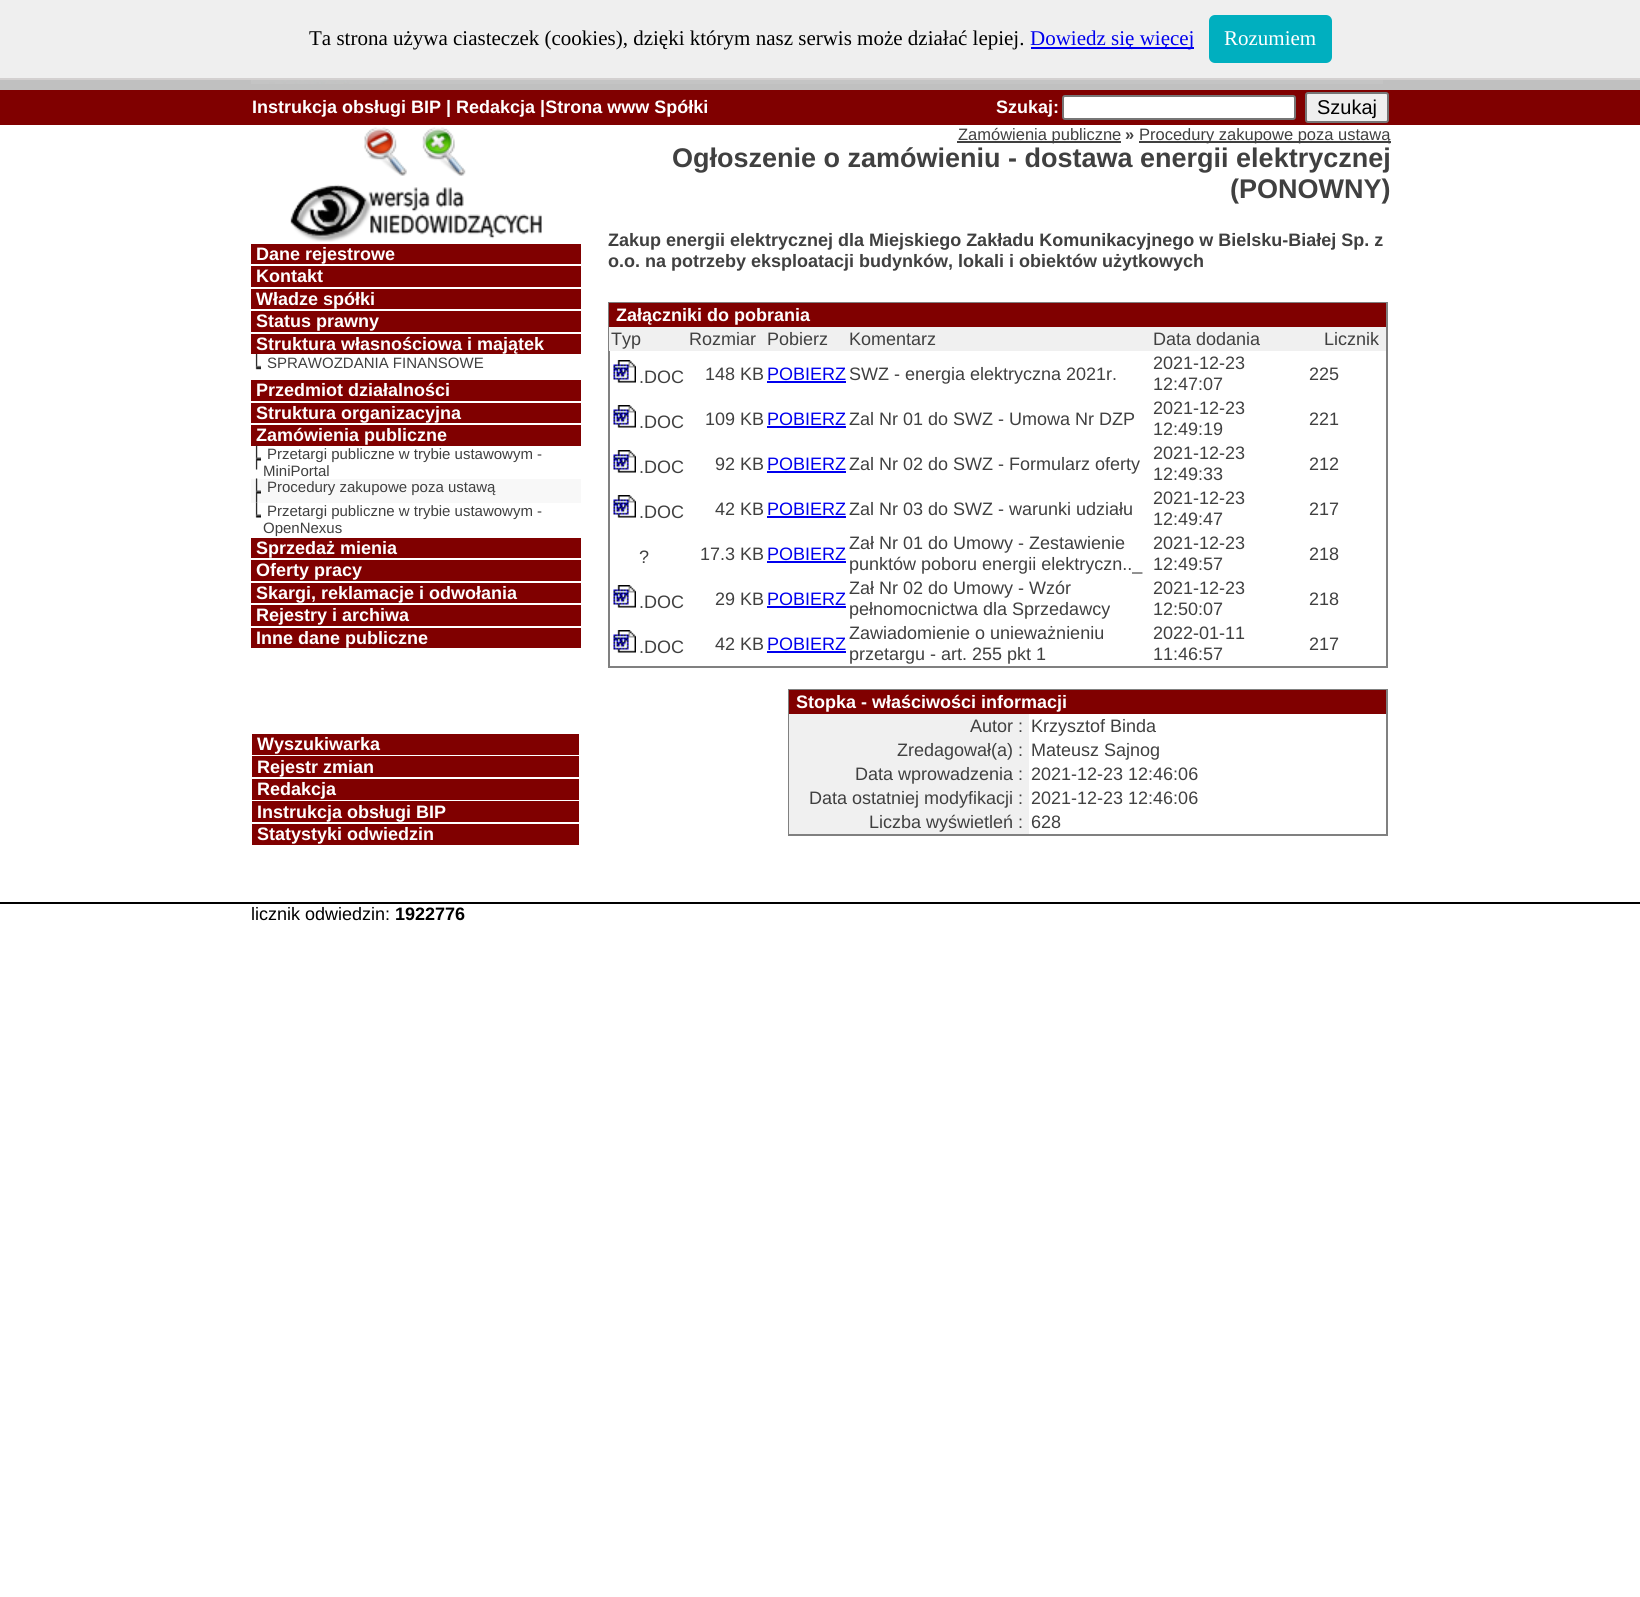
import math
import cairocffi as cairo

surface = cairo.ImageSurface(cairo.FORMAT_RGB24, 1640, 1597)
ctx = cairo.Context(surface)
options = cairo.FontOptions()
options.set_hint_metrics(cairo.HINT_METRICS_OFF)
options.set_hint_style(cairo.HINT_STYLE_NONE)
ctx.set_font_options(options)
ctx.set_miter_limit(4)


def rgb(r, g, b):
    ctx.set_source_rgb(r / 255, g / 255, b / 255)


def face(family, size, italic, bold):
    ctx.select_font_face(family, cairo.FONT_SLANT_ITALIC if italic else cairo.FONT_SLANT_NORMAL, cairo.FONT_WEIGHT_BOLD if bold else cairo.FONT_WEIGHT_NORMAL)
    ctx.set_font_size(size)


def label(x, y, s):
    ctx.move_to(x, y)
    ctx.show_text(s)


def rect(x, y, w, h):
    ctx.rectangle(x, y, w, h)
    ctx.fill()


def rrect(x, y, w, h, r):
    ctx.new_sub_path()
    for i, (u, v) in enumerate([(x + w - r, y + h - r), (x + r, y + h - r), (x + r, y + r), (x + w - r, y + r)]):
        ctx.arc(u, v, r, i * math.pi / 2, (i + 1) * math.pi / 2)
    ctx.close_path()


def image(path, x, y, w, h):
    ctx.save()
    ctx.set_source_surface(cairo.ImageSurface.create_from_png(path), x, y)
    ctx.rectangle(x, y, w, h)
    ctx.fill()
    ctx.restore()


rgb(255, 255, 255)
ctx.paint()
rgb(239, 239, 239)
rect(0, 0, 1640, 78)
rgb(211, 208, 208)
rect(0, 78, 1640, 2)
face('Liberation Serif', 21, 0, 0)
rgb(0, 0, 0)
label(309, 45, 'Ta strona używa ciasteczek (cookies), dzięki którym nasz serwis może działać lepiej.')
rgb(0, 0, 238)
rect(1031, 47, 163, 2)
label(1030, 45, 'Dowiedz się więcej')
rgb(0, 175, 191)
rrect(1209, 15, 123, 48, 6)
ctx.fill()
rgb(255, 255, 255)
label(1224, 45, 'Rozumiem')
rgb(192, 192, 192)
rect(0, 80, 1640, 10)
image('image0.png', 251, 80, 1132, 4)
rgb(128, 0, 0)
rect(0, 90, 1640, 35)
face('Liberation Sans', 18, 0, 1)
rgb(255, 255, 255)
label(252, 113, 'Instrukcja obsługi BIP | Redakcja |Strona www Spółki')
label(996, 113, 'Szukaj:')
rrect(1063, 96, 232, 23, 2)
ctx.fill_preserve()
rgb(118, 118, 118)
ctx.stroke()
rgb(239, 239, 239)
rrect(1306, 93, 82, 29, 2)
ctx.fill_preserve()
rgb(118, 118, 118)
ctx.stroke()
face('Liberation Sans', 20, 0, 0)
rgb(0, 0, 0)
label(1317, 114, 'Szukaj')
image('image1.png', 364, 127, 43, 49)
image('image2.png', 422, 127, 44, 49)
image('image3.png', 290, 184, 252, 58)
rgb(128, 0, 0)
rect(251, 244, 330, 20)
face('Liberation Sans', 18, 0, 1)
rgb(255, 255, 255)
label(256, 260, 'Dane rejestrowe')
rgb(128, 0, 0)
rect(251, 266, 330, 21)
rgb(255, 255, 255)
label(256, 282, 'Kontakt')
rgb(128, 0, 0)
rect(251, 289, 330, 20)
rgb(255, 255, 255)
label(256, 305, 'Władze spółki')
rgb(128, 0, 0)
rect(251, 311, 330, 21)
rgb(255, 255, 255)
label(256, 327, 'Status prawny')
rgb(128, 0, 0)
rect(251, 334, 330, 20)
rgb(255, 255, 255)
label(256, 350, 'Struktura własnościowa i majątek')
image('image4.png', 255, 354, 6, 16)
face('Liberation Sans', 15, 0, 0)
rgb(64, 64, 64)
label(267, 368, 'SPRAWOZDANIA FINANSOWE')
rgb(128, 0, 0)
rect(251, 380, 330, 21)
face('Liberation Sans', 18, 0, 1)
rgb(255, 255, 255)
label(256, 396, 'Przedmiot działalności')
rgb(128, 0, 0)
rect(251, 403, 330, 20)
rgb(255, 255, 255)
label(256, 419, 'Struktura organizacyjna')
rgb(128, 0, 0)
rect(251, 425, 330, 21)
rgb(255, 255, 255)
label(256, 441, 'Zamówienia publiczne')
image('image5.png', 255, 445, 6, 25)
face('Liberation Sans', 15, 0, 0)
rgb(64, 64, 64)
label(267, 459, 'Przetargi publiczne w trybie ustawowym -')
label(263, 476, 'MiniPortal')
rgb(248, 248, 248)
rect(251, 479, 330, 24)
image('image6.png', 255, 478, 6, 25)
rgb(64, 64, 64)
label(267, 492, 'Procedury zakupowe poza ustawą')
image('image7.png', 255, 502, 6, 16)
label(267, 516, 'Przetargi publiczne w trybie ustawowym -')
label(263, 533, 'OpenNexus')
rgb(128, 0, 0)
rect(251, 538, 330, 20)
face('Liberation Sans', 18, 0, 1)
rgb(255, 255, 255)
label(256, 554, 'Sprzedaż mienia')
rgb(128, 0, 0)
rect(251, 560, 330, 21)
rgb(255, 255, 255)
label(256, 576, 'Oferty pracy')
rgb(128, 0, 0)
rect(251, 583, 330, 20)
rgb(255, 255, 255)
label(256, 599, 'Skargi, reklamacje i odwołania')
rgb(128, 0, 0)
rect(251, 605, 330, 21)
rgb(255, 255, 255)
label(256, 621, 'Rejestry i archiwa')
rgb(128, 0, 0)
rect(251, 628, 330, 20)
rgb(255, 255, 255)
label(256, 644, 'Inne dane publiczne')
rgb(128, 0, 0)
rect(252, 734, 327, 21)
rgb(255, 255, 255)
label(257, 750, 'Wyszukiwarka')
rgb(128, 0, 0)
rect(252, 756, 327, 21)
rgb(255, 255, 255)
label(257, 773, 'Rejestr zmian')
rgb(128, 0, 0)
rect(252, 779, 327, 21)
rgb(255, 255, 255)
label(257, 795, 'Redakcja')
rgb(128, 0, 0)
rect(252, 801, 327, 21)
rgb(255, 255, 255)
label(257, 818, 'Instrukcja obsługi BIP')
rgb(128, 0, 0)
rect(252, 824, 327, 21)
rgb(255, 255, 255)
label(257, 840, 'Statystyki odwiedzin')
rgb(64, 64, 64)
rect(957, 141, 164, 2)
face('Liberation Sans', 16.5, 0, 0)
label(958, 140, 'Zamówienia publiczne')
face('Liberation Sans', 16.5, 0, 1)
label(1125, 140, '»')
rect(1139, 141, 252, 2)
face('Liberation Sans', 16.5, 0, 0)
label(1139, 140, 'Procedury zakupowe poza ustawą')
face('Liberation Sans', 27, 0, 1)
label(672, 167, 'Ogłoszenie o zamówieniu - dostawa energii elektrycznej')
label(1230, 198, '(PONOWNY)')
face('Liberation Sans', 18, 0, 1)
label(608, 246, 'Zakup energii elektrycznej dla Miejskiego Zakładu Komunikacyjnego w Bielsku-Białej Sp. z')
label(608, 267, 'o.o. na potrzeby eksploatacji budynków, lokali i obiektów użytkowych')
ctx.rectangle(609, 303, 778, 364)
rgb(128, 128, 128)
ctx.stroke()
rgb(128, 0, 0)
rect(609, 303, 777, 24)
rgb(255, 255, 255)
label(616, 321, 'Załączniki do pobrania')
rgb(240, 240, 240)
rect(609, 327, 777, 24)
face('Liberation Sans', 18, 0, 0)
rgb(64, 64, 64)
label(611, 345, 'Typ')
label(689, 345, 'Rozmiar')
label(767, 345, 'Pobierz')
label(849, 345, 'Komentarz')
label(1153, 345, 'Data dodania')
label(1324, 345, 'Licznik')
image('image8.png', 613, 360, 23, 23)
label(639, 383, '.DOC')
label(705, 380, '148 KB')
rgb(0, 0, 238)
label(767, 380, 'POBIERZ')
rect(767, 381, 79, 2)
rgb(64, 64, 64)
label(849, 380, 'SWZ - energia elektryczna 2021r.')
label(1153, 369, '2021-12-23')
label(1153, 390, '12:47:07')
label(1309, 380, '225')
image('image8.png', 613, 405, 23, 23)
label(639, 428, '.DOC')
label(705, 425, '109 KB')
rgb(0, 0, 238)
label(767, 425, 'POBIERZ')
rect(767, 426, 79, 2)
rgb(64, 64, 64)
label(849, 425, 'Zal Nr 01 do SWZ - Umowa Nr DZP')
label(1153, 414, '2021-12-23')
label(1153, 435, '12:49:19')
label(1309, 425, '221')
image('image8.png', 613, 450, 23, 23)
label(639, 473, '.DOC')
label(715, 470, '92 KB')
rgb(0, 0, 238)
label(767, 470, 'POBIERZ')
rect(767, 471, 79, 2)
rgb(64, 64, 64)
label(849, 470, 'Zal Nr 02 do SWZ - Formularz oferty')
label(1153, 459, '2021-12-23')
label(1153, 480, '12:49:33')
label(1309, 470, '212')
image('image8.png', 613, 495, 23, 23)
label(639, 518, '.DOC')
label(715, 515, '42 KB')
rgb(0, 0, 238)
label(767, 515, 'POBIERZ')
rect(767, 516, 79, 2)
rgb(64, 64, 64)
label(849, 515, 'Zal Nr 03 do SWZ - warunki udziału')
label(1153, 504, '2021-12-23')
label(1153, 525, '12:49:47')
label(1309, 515, '217')
label(639, 563, '?')
label(700, 560, '17.3 KB')
rgb(0, 0, 238)
label(767, 560, 'POBIERZ')
rect(767, 561, 79, 2)
rgb(64, 64, 64)
label(849, 549, 'Zał Nr 01 do Umowy - Zestawienie')
label(849, 570, 'punktów poboru energii elektryczn.._')
label(1153, 549, '2021-12-23')
label(1153, 570, '12:49:57')
label(1309, 560, '218')
image('image8.png', 613, 585, 23, 23)
label(639, 608, '.DOC')
label(715, 605, '29 KB')
rgb(0, 0, 238)
label(767, 605, 'POBIERZ')
rect(767, 606, 79, 2)
rgb(64, 64, 64)
label(849, 594, 'Zał Nr 02 do Umowy - Wzór')
label(849, 615, 'pełnomocnictwa dla Sprzedawcy')
label(1153, 594, '2021-12-23')
label(1153, 615, '12:50:07')
label(1309, 605, '218')
image('image8.png', 613, 630, 23, 23)
label(639, 653, '.DOC')
label(715, 650, '42 KB')
rgb(0, 0, 238)
label(767, 650, 'POBIERZ')
rect(767, 651, 79, 2)
rgb(64, 64, 64)
label(849, 639, 'Zawiadomienie o unieważnieniu')
label(849, 660, 'przetargu - art. 255 pkt 1')
label(1153, 639, '2022-01-11')
label(1153, 660, '11:46:57')
label(1309, 650, '217')
ctx.rectangle(789, 690, 598, 145)
rgb(128, 128, 128)
ctx.stroke()
rgb(128, 0, 0)
rect(789, 690, 597, 24)
face('Liberation Sans', 18, 0, 1)
rgb(255, 255, 255)
label(796, 708, 'Stopka - właściwości informacji')
rgb(240, 240, 240)
rect(789, 714, 240, 120)
face('Liberation Sans', 18, 0, 0)
rgb(64, 64, 64)
label(970, 732, 'Autor :')
label(1031, 732, 'Krzysztof Binda')
label(897, 756, 'Zredagował(a) :')
label(1031, 756, 'Mateusz Sajnog')
label(855, 780, 'Data wprowadzenia :')
label(1031, 780, '2021-12-23 12:46:06')
label(809, 804, 'Data ostatniej modyfikacji :')
label(1031, 804, '2021-12-23 12:46:06')
label(869, 828, 'Liczba wyświetleń :')
label(1031, 828, '628')
rgb(0, 0, 0)
rect(0, 902, 1640, 2)
label(251, 920, 'licznik odwiedzin:')
face('Liberation Sans', 18, 0, 1)
label(395, 920, '1922776')
surface.write_to_png('render.png')
